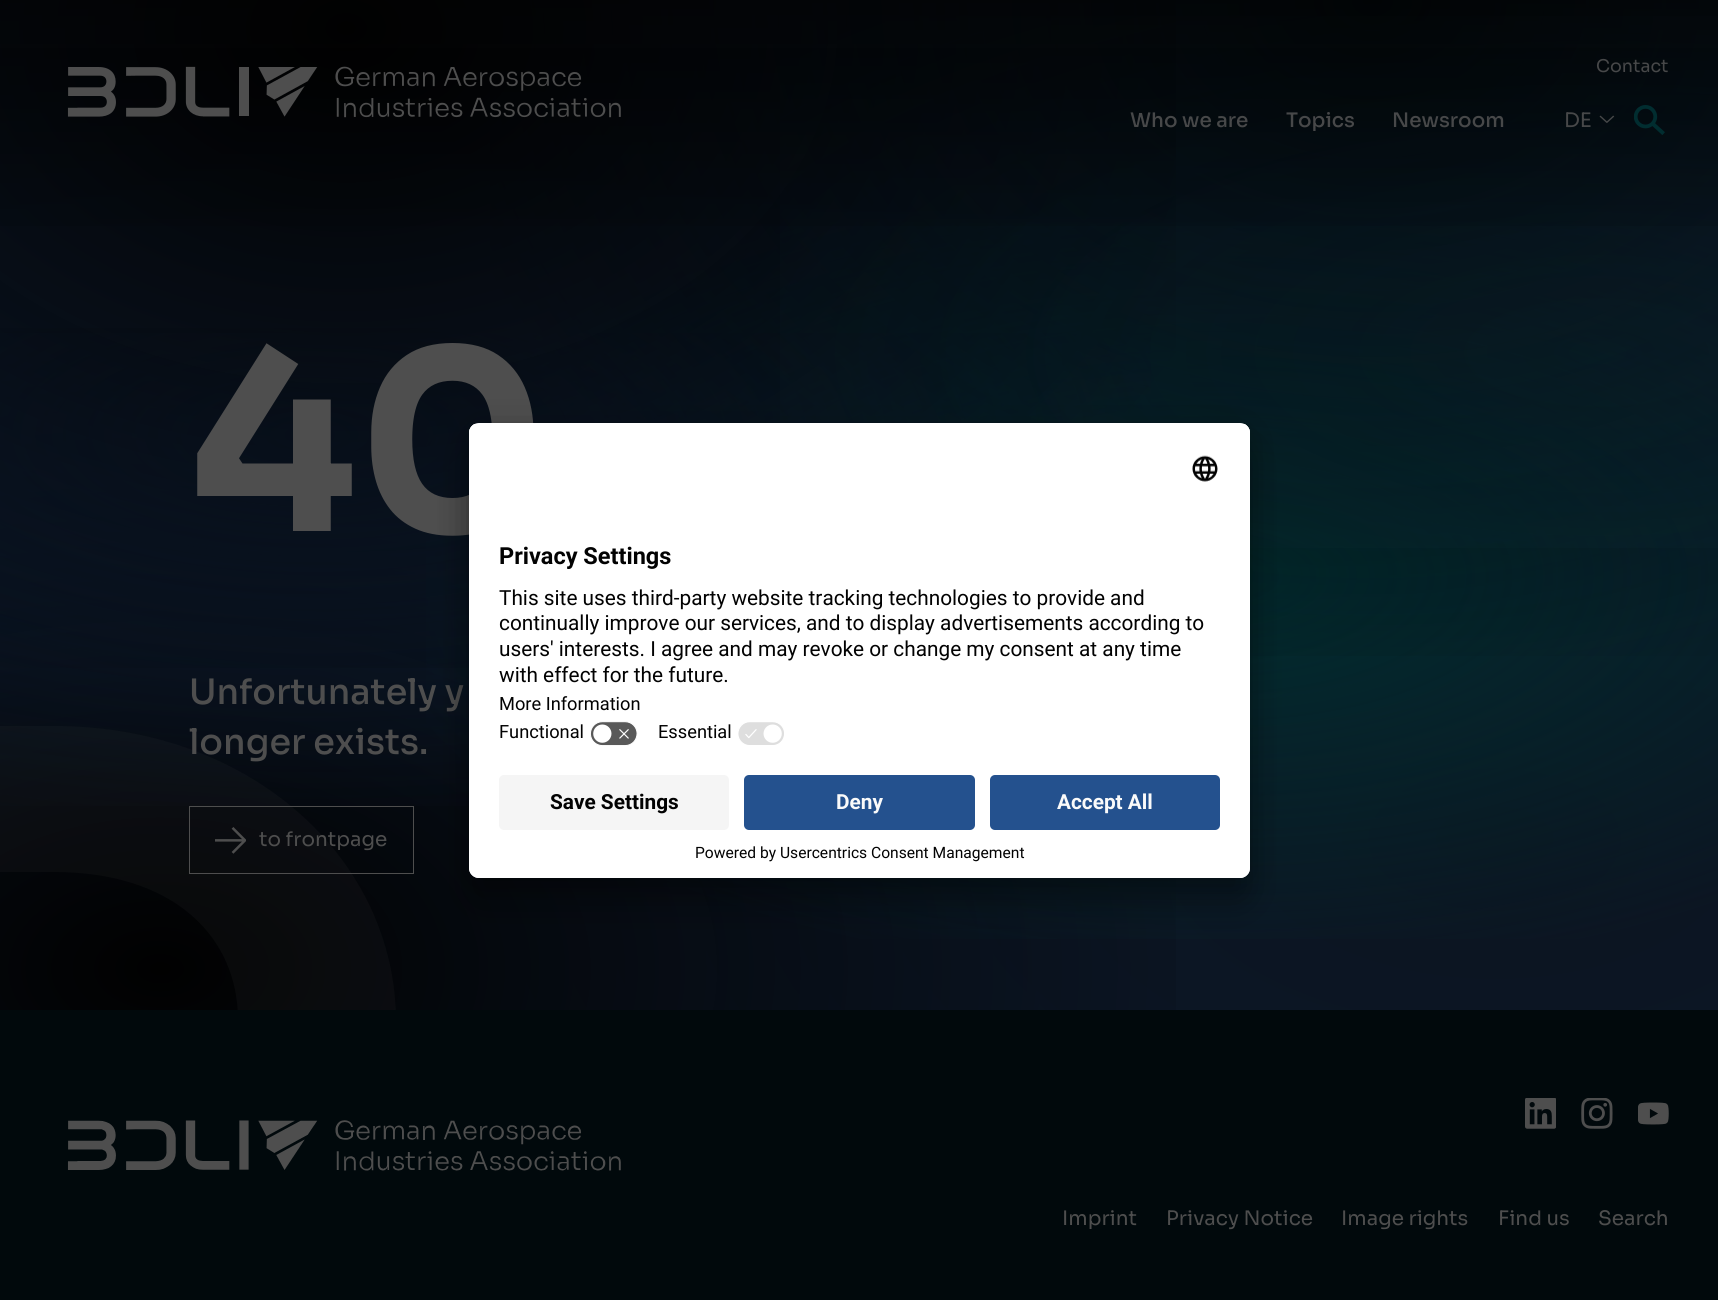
import math
import cairocffi as cairo

surface = cairo.ImageSurface(cairo.FORMAT_RGB24, 1718, 1300)
ctx = cairo.Context(surface)
options = cairo.FontOptions()
options.set_hint_metrics(cairo.HINT_METRICS_OFF)
options.set_hint_style(cairo.HINT_STYLE_NONE)
ctx.set_font_options(options)
ctx.set_miter_limit(4)


def rgb(r, g, b):
    ctx.set_source_rgb(r / 255, g / 255, b / 255)


def face(family, size, italic, bold):
    ctx.select_font_face(family, cairo.FONT_SLANT_ITALIC if italic else cairo.FONT_SLANT_NORMAL, cairo.FONT_WEIGHT_BOLD if bold else cairo.FONT_WEIGHT_NORMAL)
    ctx.set_font_size(size)


def label(x, y, s):
    ctx.move_to(x, y)
    ctx.show_text(s)


def rect(x, y, w, h):
    ctx.rectangle(x, y, w, h)
    ctx.fill()


def rrect(x, y, w, h, r):
    ctx.new_sub_path()
    for i, (u, v) in enumerate([(x + w - r, y + h - r), (x + r, y + h - r), (x + r, y + r), (x + w - r, y + r)]):
        ctx.arc(u, v, r, i * math.pi / 2, (i + 1) * math.pi / 2)
    ctx.close_path()


def soft_shadow(x, y, w, h, r, blur, alpha):
    ctx.push_group_with_content(cairo.CONTENT_ALPHA)
    ctx.set_operator(cairo.OPERATOR_SOURCE)
    for i in range(15, -16, -2):
        e = blur * i / 6
        if min(w, h) + 2 * e > 0:
            ctx.set_source_rgba(0, 0, 0, alpha * math.erfc((i - 1) / 8.5) / 2)
            rrect(x - e, y - e, w + 2 * e, h + 2 * e, max(0, min(r + e + blur * .6, min(w, h) / 2 + e)))
            ctx.fill()
    ctx.mask(ctx.pop_group())


def image(path, x, y, w, h):
    ctx.save()
    ctx.set_source_surface(cairo.ImageSurface.create_from_png(path), x, y)
    ctx.rectangle(x, y, w, h)
    ctx.fill()
    ctx.restore()


rgb(255, 255, 255)
ctx.paint()
gradient = cairo.RadialGradient(0, 0, 0, 0, 0, 1)
gradient.set_matrix(cairo.Matrix(1 / 2115, 0, 0, 1 / 1186, -1 * 1495 / 2115, -1 * 838 / 1186))
gradient.add_color_stop_rgba(0, 0.047, 0.078, 0.125, 1)
gradient.add_color_stop_rgba(0.5, 0.047, 0.098, 0.169, 1)
ctx.set_source(gradient)
rect(0, 0, 1718, 1010)
gradient = cairo.RadialGradient(0, 0, 0, 0, 0, 1)
gradient.set_matrix(cairo.Matrix(1 / 2212, 0, 0, 1 / 1371, -1 * 155 / 2212, -1 * 970 / 1371))
gradient.add_color_stop_rgba(0, 0.004, 0.004, 0.004, 1)
gradient.add_color_stop_rgba(0.5, 0.004, 0.004, 0.004, 0)
ctx.set_source(gradient)
rect(0, 328, 1176, 682)
gradient = cairo.RadialGradient(0, 0, 0, 0, 0, 1)
gradient.set_matrix(cairo.Matrix(1 / 1726, 0, 0, 1 / 814, -1 * 1220 / 1726, -1 * 576 / 814))
gradient.add_color_stop_rgba(0, 0.004, 0.173, 0.184, 1)
gradient.add_color_stop_rgba(0.5, 0.004, 0.173, 0.184, 0)
ctx.set_source(gradient)
rect(426, 222, 1292, 717)
gradient = cairo.RadialGradient(0, 0, 0, 0, 0, 1)
gradient.set_matrix(cairo.Matrix(1 / 1993, 0, 0, 1 / 814, -1 * 309 / 1993, -1 * 434 / 814))
gradient.add_color_stop_rgba(0, 0.047, 0.098, 0.169, 1)
gradient.add_color_stop_rgba(0.5, 0.047, 0.098, 0.169, 0)
ctx.set_source(gradient)
rect(0, 333, 1151, 473)
gradient = cairo.RadialGradient(0, 0, 0, 0, 0, 1)
gradient.set_matrix(cairo.Matrix(1 / 1945, 0, 0, 1 / 1428, -1 * 1375 / 1945, -1 * 0 / 1428))
gradient.add_color_stop_rgba(0, 0.004, 0.031, 0.043, 1)
gradient.add_color_stop_rgba(0.5, 0.004, 0.031, 0.043, 0)
ctx.set_source(gradient)
rect(490, 0, 1228, 656)
gradient = cairo.RadialGradient(0, 0, 0, 0, 0, 1)
gradient.set_matrix(cairo.Matrix(1 / 1945, 0, 0, 1 / 1386, -1 * 344 / 1945, -1 * 30 / 1386))
gradient.add_color_stop_rgba(0, 0.004, 0.004, 0.004, 1)
gradient.add_color_stop_rgba(0.5, 0.004, 0.004, 0.004, 0)
ctx.set_source(gradient)
rect(0, 0, 1176, 668)
gradient = cairo.RadialGradient(0, 0, 0, 0, 0, 1)
gradient.set_matrix(cairo.Matrix(1 / 2261, 0, 0, 1 / 928, -1 * 1598 / 2261, -1 * 353 / 928))
gradient.add_color_stop_rgba(0, 0.047, 0.169, 0.204, 0.25)
gradient.add_color_stop_rgba(0.5, 0.047, 0.169, 0.204, 0)
ctx.set_source(gradient)
rect(780, 16, 938, 532)
gradient = cairo.LinearGradient(859, 0, 859, 263)
gradient.add_color_stop_rgba(0, 0.004, 0.004, 0.004, 0.6)
gradient.add_color_stop_rgba(1, 0.004, 0.004, 0.004, 0)
ctx.set_source(gradient)
rect(0, 0, 1718, 226)
image('image0.png', 67, 66, 554, 52)
face('Sora', 17.5, 0, 0)
rgb(71, 72, 73)
label(1596, 72, 'Contact')
face('Sora Medium', 20, 0, 0)
label(1130, 127, 'Who we are')
label(1286, 127, 'Topics')
label(1392, 127, 'Newsroom')
face('Sora', 20, 0, 0)
label(1564, 127, 'DE')
image('image1.png', 1599, 115, 16, 8)
image('image2.png', 1634, 105, 31, 30)
face('Sora', 250, 0, 1)
rgb(78, 78, 78)
label(189, 531, '40')
face('Sora Medium', 35, 0, 0)
label(189, 704, 'Unfortunately y')
ctx.set_source_rgba(0.306, 0.306, 0.306, 0.1)
ctx.new_path()
ctx.move_to(-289, 872)
ctx.line_to(54, 872)
ctx.curve_to(174, 872, 238, 937, 238, 1020)
ctx.line_to(238, 1270)
ctx.curve_to(238, 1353, 174, 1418, 54, 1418)
ctx.line_to(-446, 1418)
ctx.line_to(-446, 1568)
ctx.line_to(54, 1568)
ctx.curve_to(251, 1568, 396, 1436, 396, 1273)
ctx.line_to(396, 1022)
ctx.curve_to(396, 859, 251, 726, 54, 726)
ctx.line_to(-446, 726)
ctx.line_to(-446, 874)
ctx.fill()
rgb(78, 78, 78)
label(189, 754, 'longer exists.')
ctx.rectangle(189.5, 806.5, 224, 67)
ctx.set_line_width(1)
ctx.stroke()
image('image3.png', 215, 827, 31, 27)
face('Sora', 20, 0, 0)
label(259, 846, 'to frontpage')
rgb(1, 9, 12)
rect(0, 1010, 1718, 290)
image('image4.png', 67, 1120, 554, 51)
image('image5.png', 1525, 1098, 31, 31)
image('image6.png', 1581, 1098, 32, 31)
image('image7.png', 1638, 1102, 31, 23)
rgb(78, 78, 78)
label(1062, 1225, 'Imprint')
label(1166, 1225, 'Privacy Notice')
label(1341, 1225, 'Image rights')
label(1498, 1225, 'Find us')
label(1598, 1225, 'Search')
rgb(0, 0, 0)
soft_shadow(469, 448, 781, 455, 10, 17.5, 0.3)
soft_shadow(469, 429, 781, 455, 10, 16, 0.22)
rgb(255, 255, 255)
rrect(469, 423, 781, 455, 10)
ctx.fill()
ctx.save()
rrect(469, 423, 781, 455, 10)
ctx.clip()
ctx.new_path()
ctx.move_to(479, 423)
ctx.line_to(1240, 423)
ctx.curve_to(1245.5, 423, 1250, 427.5, 1250, 433)
ctx.line_to(1250, 765)
ctx.line_to(469, 765)
ctx.line_to(469, 433)
ctx.curve_to(469, 427.5, 473.5, 423, 479, 423)
ctx.close_path()
ctx.clip()
rect(469, 424, 781, 341)
rect(469, 424, 781, 291)
ctx.restore()
image('image8.png', 1192, 455, 26, 27)
face('Roboto', 23.5, 0, 1)
rgb(2, 2, 2)
label(499, 564, 'Privacy Settings')
face('Roboto', 20.8, 0, 0)
label(499, 605, 'This site uses third-party website tracking technologies to provide and')
label(499, 630, 'continually improve our services, and to display advertisements according to')
label(499, 656, 'users\' interests. I agree and may revoke or change my consent at any time')
label(499, 682, 'with effect for the future.')
face('Roboto', 18.25, 0, 0)
label(499, 710, 'More Information')
label(499, 738, 'Functional')
image('image9.png', 590, 721, 48, 25)
label(658, 738, 'Essential')
image('image10.png', 738, 722, 46, 23)
rgb(255, 255, 255)
ctx.new_path()
ctx.move_to(469, 765)
ctx.line_to(1250, 765)
ctx.line_to(1250, 868)
ctx.curve_to(1250, 873.5, 1245.5, 878, 1240, 878)
ctx.line_to(479, 878)
ctx.curve_to(473.5, 878, 469, 873.5, 469, 868)
ctx.close_path()
ctx.fill()
rgb(245, 245, 245)
rrect(499, 775, 230, 55, 5)
ctx.fill()
face('Roboto', 20.8, 0, 1)
rgb(2, 2, 2)
label(550, 809, 'Save Settings')
rgb(36, 81, 142)
rrect(744, 775, 231, 55, 5)
ctx.fill()
rgb(250, 250, 250)
label(836, 809, 'Deny')
rgb(36, 81, 142)
rrect(990, 775, 230, 55, 5)
ctx.fill()
rgb(250, 250, 250)
label(1057, 809, 'Accept All')
face('Roboto', 15.6, 0, 0)
rgb(2, 2, 2)
label(695, 858, 'Powered by Usercentrics Consent Management')
surface.write_to_png('render.png')
